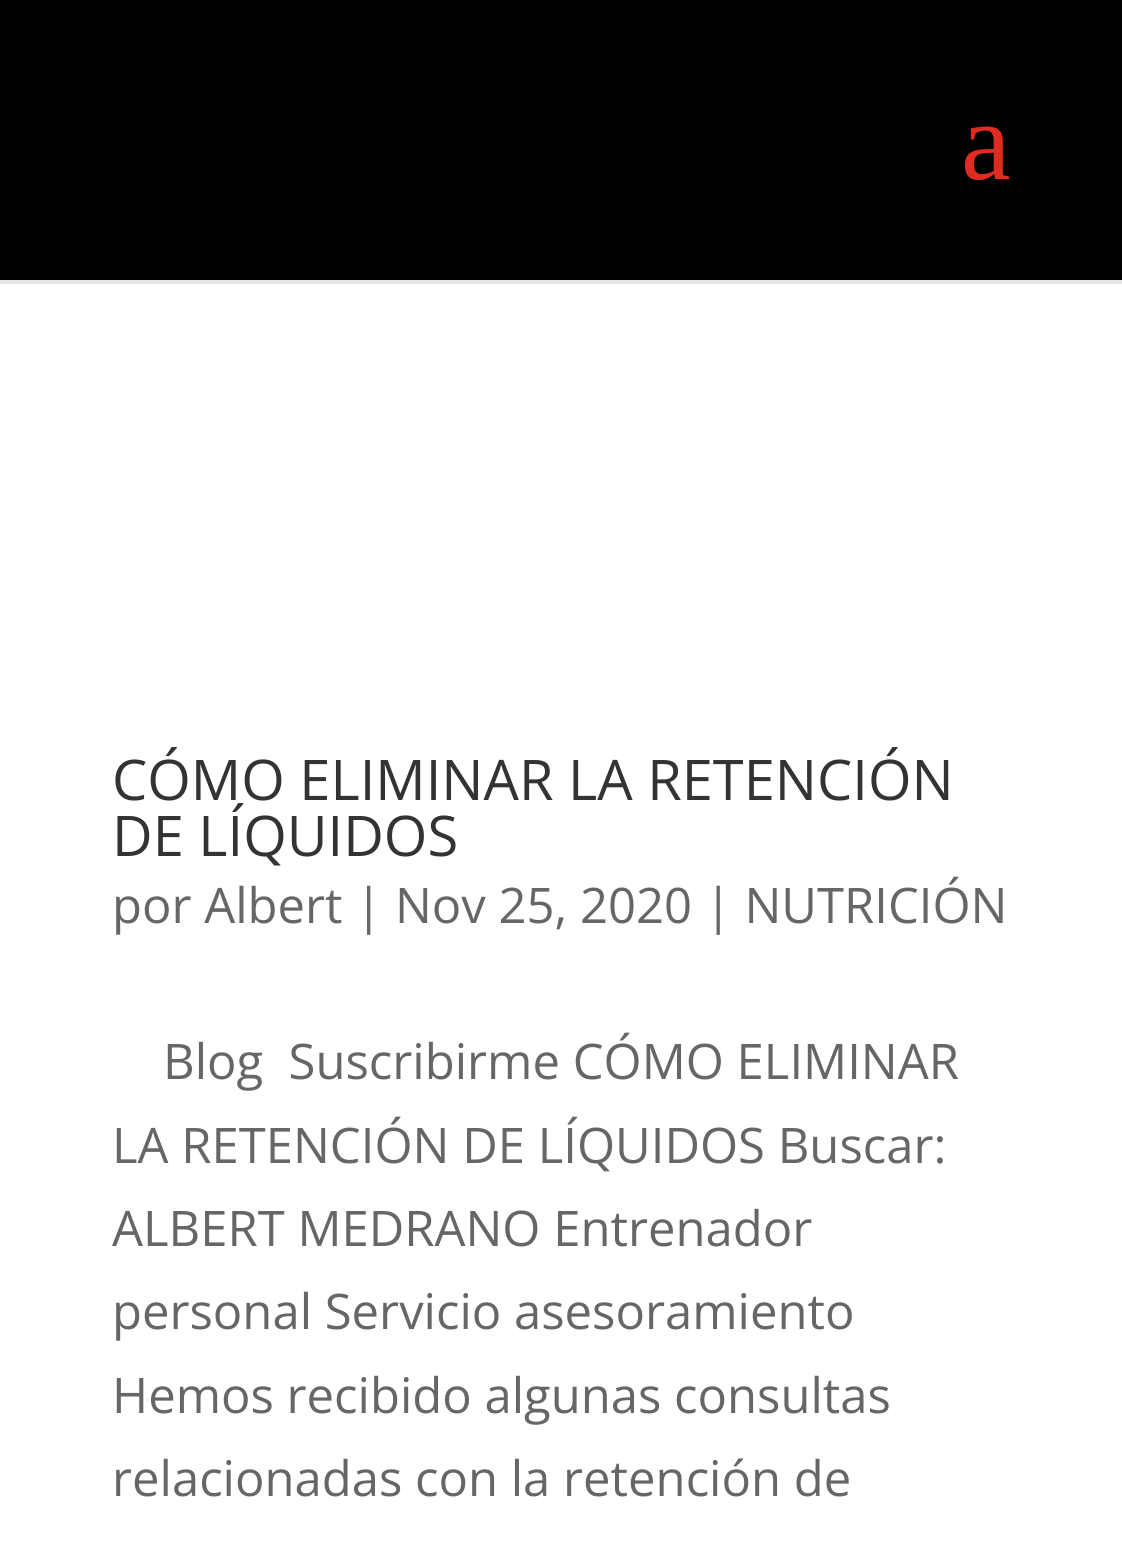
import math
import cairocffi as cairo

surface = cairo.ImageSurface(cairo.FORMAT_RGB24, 1122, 1563)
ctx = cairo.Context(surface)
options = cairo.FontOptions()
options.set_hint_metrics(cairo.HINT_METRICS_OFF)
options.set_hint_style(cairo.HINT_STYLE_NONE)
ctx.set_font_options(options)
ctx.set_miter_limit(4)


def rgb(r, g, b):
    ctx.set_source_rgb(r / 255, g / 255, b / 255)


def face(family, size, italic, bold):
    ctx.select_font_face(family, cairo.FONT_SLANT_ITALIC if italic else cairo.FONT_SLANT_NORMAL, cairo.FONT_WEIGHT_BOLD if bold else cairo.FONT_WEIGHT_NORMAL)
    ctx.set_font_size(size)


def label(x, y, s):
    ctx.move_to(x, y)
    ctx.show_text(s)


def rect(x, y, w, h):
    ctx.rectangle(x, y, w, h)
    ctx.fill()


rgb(255, 255, 255)
ctx.paint()
rgb(230, 230, 230)
ctx.new_path()
ctx.move_to(0, 280)
ctx.line_to(0, 284)
ctx.line_to(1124, 284)
ctx.line_to(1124, 4)
ctx.line_to(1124, 280)
ctx.close_path()
ctx.fill()
rgb(0, 0, 0)
rect(0, 0, 1122, 280)
face('Liberation Serif', 112, 0, 0)
rgb(224, 43, 32)
label(961, 179, 'a')
face('Open Sans', 56, 0, 0)
rgb(51, 51, 51)
label(112, 800, 'CÓMO ELIMINAR LA RETENCIÓN')
label(112, 856, 'DE LÍQUIDOS')
face('Open Sans', 49, 0, 0)
rgb(102, 102, 102)
label(112, 923, 'por Albert | Nov 25, 2020 | NUTRICIÓN')
label(163, 1079, 'Blog  Suscribirme CÓMO ELIMINAR')
label(112, 1163, 'LA RETENCIÓN DE LÍQUIDOS Buscar:')
label(112, 1246, 'ALBERT MEDRANO Entrenador')
label(112, 1329, 'personal Servicio asesoramiento')
label(112, 1413, 'Hemos recibido algunas consultas')
label(112, 1496, 'relacionadas con la retención de')
surface.write_to_png('render.png')
